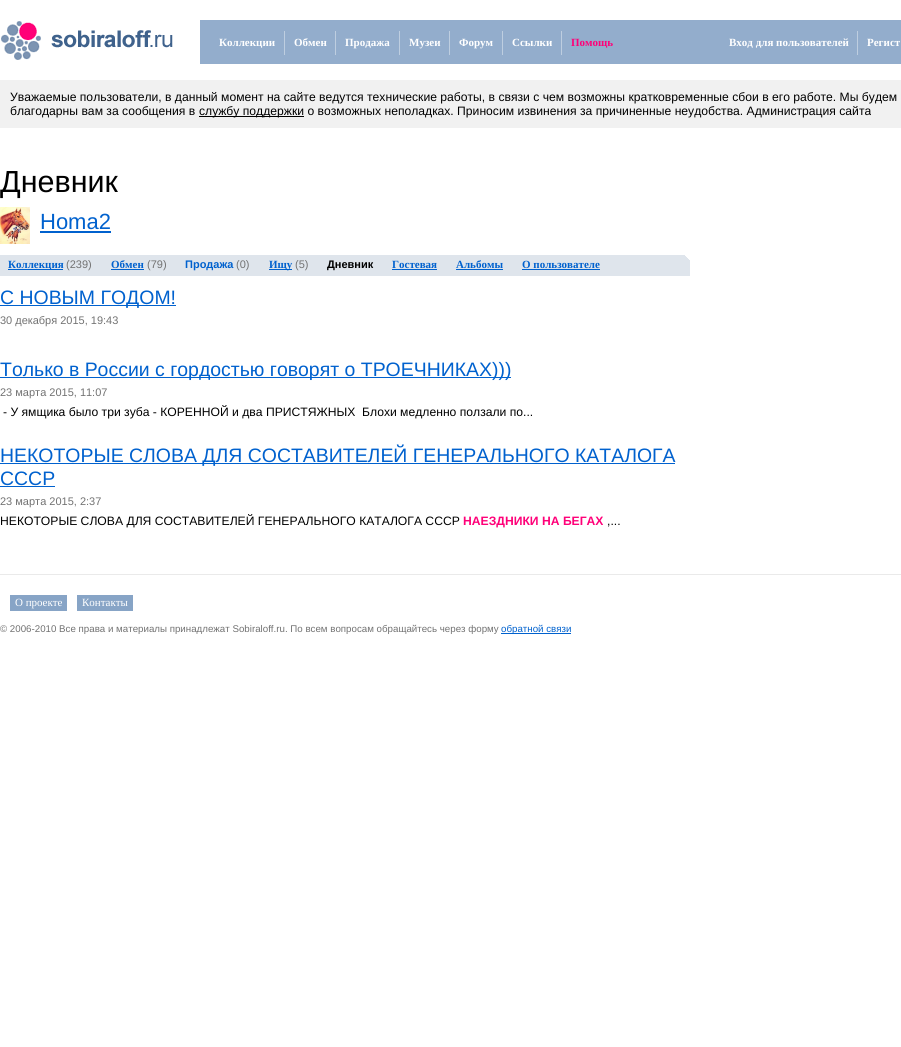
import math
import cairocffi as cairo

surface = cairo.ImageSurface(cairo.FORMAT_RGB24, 901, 1047)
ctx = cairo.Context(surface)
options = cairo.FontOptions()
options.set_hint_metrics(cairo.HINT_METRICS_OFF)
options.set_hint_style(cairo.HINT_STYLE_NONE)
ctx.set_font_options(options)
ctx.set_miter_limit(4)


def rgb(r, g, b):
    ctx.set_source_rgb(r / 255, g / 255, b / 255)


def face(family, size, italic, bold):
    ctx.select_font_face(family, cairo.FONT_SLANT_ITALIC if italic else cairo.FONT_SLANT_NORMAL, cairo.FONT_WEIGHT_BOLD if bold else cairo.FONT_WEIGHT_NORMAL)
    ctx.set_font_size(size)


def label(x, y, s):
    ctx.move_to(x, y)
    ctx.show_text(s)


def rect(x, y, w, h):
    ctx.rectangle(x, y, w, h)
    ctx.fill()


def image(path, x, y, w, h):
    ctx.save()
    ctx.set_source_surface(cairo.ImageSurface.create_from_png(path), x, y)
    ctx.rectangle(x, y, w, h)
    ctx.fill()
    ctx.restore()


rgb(255, 255, 255)
ctx.paint()
image('image0.png', 0, 21, 173, 39)
rgb(147, 173, 204)
rect(200, 20, 701, 44)
face('Liberation Serif', 11, 0, 1)
rgb(255, 255, 255)
label(219, 46, 'Коллекции')
rgb(190, 206, 224)
rect(284, 31, 1, 24)
rgb(255, 255, 255)
label(294, 46, 'Обмен')
rgb(190, 206, 224)
rect(335, 31, 1, 24)
rgb(255, 255, 255)
label(345, 46, 'Продажа')
rgb(190, 206, 224)
rect(399, 31, 1, 24)
rgb(255, 255, 255)
label(409, 46, 'Музеи')
rgb(190, 206, 224)
rect(449, 31, 1, 24)
rgb(255, 255, 255)
label(459, 46, 'Форум')
rgb(190, 206, 224)
rect(502, 31, 1, 24)
rgb(255, 255, 255)
label(512, 46, 'Ссылки')
rgb(190, 206, 224)
rect(561, 31, 1, 24)
rgb(255, 0, 120)
label(571, 46, 'Помощь')
rgb(255, 255, 255)
label(729, 46, 'Вход для пользователей')
rgb(190, 206, 224)
rect(857, 31, 1, 24)
rgb(255, 255, 255)
label(867, 46, 'Регист')
rgb(241, 241, 241)
rect(0, 80, 901, 48)
face('Liberation Sans', 12.15, 0, 0)
rgb(0, 0, 0)
label(10, 101, 'Уважаемые пользователи, в данный момент на сайте ведутся технические работы, в связи с чем возможны кратковременные сбои в его работе. Мы будем')
label(10, 115, 'благодарны вам за сообщения в')
rect(199, 116, 105, 1)
label(199, 115, 'службу поддержки о возможных неполадках. Приносим извинения за причиненные неудобства. Администрация сайта')
face('Liberation Sans', 30.5, 0, 0)
label(0, 192, 'Дневник')
image('image1.png', 0, 207, 30, 37)
face('Liberation Sans', 22, 0, 0)
rgb(0, 97, 206)
label(40, 229, 'Homa2')
rect(40, 231, 71, 2)
rgb(223, 229, 236)
rect(0, 255, 690, 21)
image('image2.png', 685, 255, 5, 5)
rgb(0, 97, 206)
rect(8, 269, 55, 1)
face('Liberation Serif', 11, 0, 1)
label(8, 268, 'Коллекция')
face('Liberation Sans', 11, 0, 0)
rgb(114, 114, 114)
label(66, 268, '(239)')
face('Liberation Serif', 11, 0, 1)
rgb(0, 97, 206)
label(111, 268, 'Обмен')
rect(111, 269, 33, 1)
face('Liberation Sans', 11, 0, 0)
rgb(114, 114, 114)
label(147, 268, '(79)')
face('Liberation Sans', 11, 0, 1)
rgb(0, 97, 206)
label(185, 268, 'Продажа')
face('Liberation Sans', 11, 0, 0)
rgb(114, 114, 114)
label(236, 268, '(0)')
rgb(0, 97, 206)
rect(269, 269, 23, 1)
face('Liberation Serif', 11, 0, 1)
label(269, 268, 'Ищу')
face('Liberation Sans', 11, 0, 0)
rgb(114, 114, 114)
label(295, 268, '(5)')
face('Liberation Sans', 11, 0, 1)
rgb(0, 0, 0)
label(327, 268, 'Дневник')
face('Liberation Serif', 11, 0, 1)
rgb(0, 97, 206)
label(392, 268, 'Гостевая')
rect(392, 269, 45, 1)
label(456, 268, 'Альбомы')
rect(456, 269, 47, 1)
label(522, 268, 'О пользователе')
rect(522, 269, 78, 1)
rect(0, 305, 176, 1)
face('Liberation Sans', 19.45, 0, 0)
label(0, 304, 'С НОВЫМ ГОДОМ!')
face('Liberation Sans', 11, 0, 0)
rgb(114, 114, 114)
label(0, 324, '30 декабря 2015, 19:43')
rgb(0, 97, 206)
rect(0, 377, 511, 1)
face('Liberation Sans', 19.45, 0, 0)
label(0, 376, 'Только в России с гордостью говорят о ТРОЕЧНИКАХ)))')
face('Liberation Sans', 11, 0, 0)
rgb(114, 114, 114)
label(0, 396, '23 марта 2015, 11:07')
face('Liberation Sans', 12.15, 0, 0)
rgb(0, 0, 0)
label(3, 416, '- У ямщика было три зуба - КОРЕННОЙ и два ПРИСТЯЖНЫХ  Блохи медленно ползали по...')
rgb(0, 97, 206)
rect(0, 463, 675, 1)
face('Liberation Sans', 19.45, 0, 0)
label(0, 462, 'НЕКОТОРЫЕ СЛОВА ДЛЯ СОСТАВИТЕЛЕЙ ГЕНЕРАЛЬНОГО КАТАЛОГА')
label(0, 485, 'СССР')
rect(0, 486, 55, 1)
face('Liberation Sans', 11, 0, 0)
rgb(114, 114, 114)
label(0, 505, '23 марта 2015, 2:37')
face('Liberation Sans', 12.15, 0, 0)
rgb(0, 0, 0)
label(0, 525, 'НЕКОТОРЫЕ СЛОВА ДЛЯ СОСТАВИТЕЛЕЙ ГЕНЕРАЛЬНОГО КАТАЛОГА СССР')
face('Liberation Sans', 12.15, 0, 1)
rgb(255, 0, 120)
label(463, 525, 'НАЕЗДНИКИ НА БЕГАХ')
face('Liberation Sans', 12.15, 0, 0)
rgb(0, 0, 0)
label(607, 525, ',...')
rgb(234, 234, 234)
rect(0, 574, 901, 1)
rgb(135, 164, 198)
rect(10, 595, 57, 16)
face('Liberation Serif', 11, 0, 0)
rgb(255, 255, 255)
label(15, 606, 'О проекте')
rgb(135, 164, 198)
rect(77, 595, 56, 16)
rgb(255, 255, 255)
label(82, 606, 'Контакты')
face('Liberation Sans', 9.73, 0, 0)
rgb(114, 114, 114)
label(0, 632, '© 2006-2010 Все права и материалы принадлежат Sobiraloff.ru. По всем вопросам обращайтесь через форму')
rgb(0, 97, 206)
rect(501, 633, 70, 1)
label(501, 632, 'обратной связи')
surface.write_to_png('render.png')
